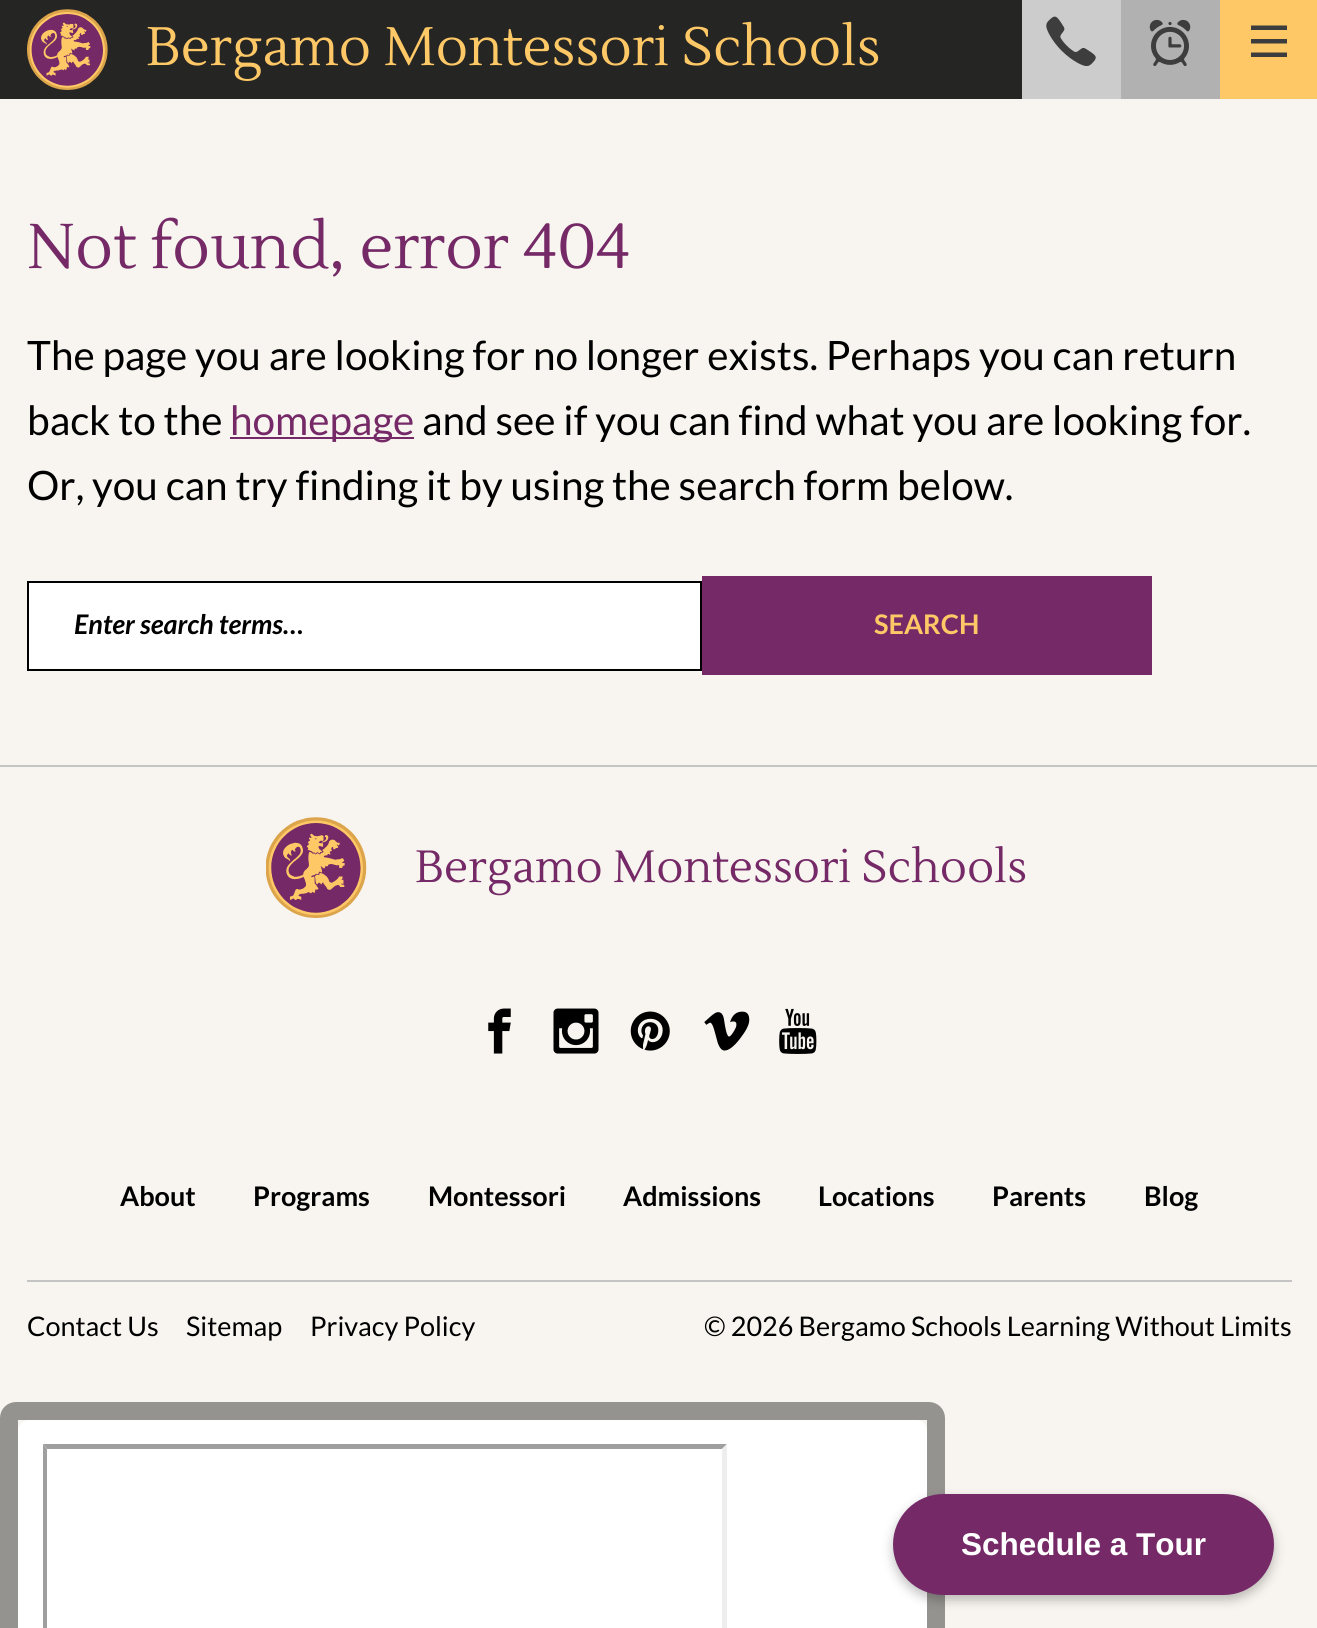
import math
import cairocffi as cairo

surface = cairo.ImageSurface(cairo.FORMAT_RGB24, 1317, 1628)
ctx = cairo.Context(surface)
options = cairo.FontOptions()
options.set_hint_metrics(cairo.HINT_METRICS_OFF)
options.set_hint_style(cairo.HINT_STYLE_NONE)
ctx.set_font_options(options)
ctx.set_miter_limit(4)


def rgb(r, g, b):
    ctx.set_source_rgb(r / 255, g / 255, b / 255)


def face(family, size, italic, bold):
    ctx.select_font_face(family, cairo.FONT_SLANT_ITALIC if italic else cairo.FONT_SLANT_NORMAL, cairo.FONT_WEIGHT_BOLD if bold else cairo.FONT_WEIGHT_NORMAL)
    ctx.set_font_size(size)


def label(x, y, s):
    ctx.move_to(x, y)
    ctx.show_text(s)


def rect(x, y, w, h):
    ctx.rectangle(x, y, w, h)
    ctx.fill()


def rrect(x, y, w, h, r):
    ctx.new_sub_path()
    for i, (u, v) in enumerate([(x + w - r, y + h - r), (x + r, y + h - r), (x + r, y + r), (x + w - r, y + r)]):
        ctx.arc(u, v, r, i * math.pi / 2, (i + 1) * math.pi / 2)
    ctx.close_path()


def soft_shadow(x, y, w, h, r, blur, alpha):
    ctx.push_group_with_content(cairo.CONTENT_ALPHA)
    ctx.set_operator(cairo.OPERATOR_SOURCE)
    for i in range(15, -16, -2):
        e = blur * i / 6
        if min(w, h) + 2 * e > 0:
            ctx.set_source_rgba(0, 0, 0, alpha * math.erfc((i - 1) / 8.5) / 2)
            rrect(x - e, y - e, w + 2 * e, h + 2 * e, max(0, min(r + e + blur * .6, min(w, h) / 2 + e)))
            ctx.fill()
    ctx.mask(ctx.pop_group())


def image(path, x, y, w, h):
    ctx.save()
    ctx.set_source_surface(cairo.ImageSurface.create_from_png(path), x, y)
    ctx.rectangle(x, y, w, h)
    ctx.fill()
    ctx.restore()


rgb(248, 245, 240)
ctx.paint()
rgb(37, 37, 36)
rect(0, 0, 1022, 99)
image('image0.png', 27, 9, 81, 81)
face('Lustria', 54, 0, 0)
rgb(254, 200, 102)
label(146, 65, 'Bergamo Montessori Schools')
rgb(204, 204, 204)
rect(1022, 0, 99, 99)
image('image1.png', 1046, 16, 50, 50)
rgb(177, 177, 177)
rect(1121, 0, 99, 99)
image('image2.png', 1149, 19, 42, 48)
rgb(254, 200, 102)
rect(1220, 0, 97, 99)
rgb(61, 61, 61)
ctx.new_path()
ctx.move_to(1251, 25.5)
ctx.line_to(1287, 25.5)
ctx.line_to(1287, 30)
ctx.line_to(1251, 30)
ctx.close_path()
ctx.move_to(1251, 39)
ctx.line_to(1287, 39)
ctx.line_to(1287, 43.5)
ctx.line_to(1251, 43.5)
ctx.close_path()
ctx.move_to(1251, 52.5)
ctx.line_to(1287, 52.5)
ctx.line_to(1287, 57)
ctx.line_to(1251, 57)
ctx.close_path()
ctx.fill()
face('Lustria', 63, 0, 0)
rgb(117, 42, 103)
label(27, 268, 'Not found, error 404')
face('Lato', 40.5, 0, 0)
rgb(0, 0, 0)
label(27, 370, 'The page you are looking for no longer exists. Perhaps you can return')
label(27, 435, 'back to the')
rgb(117, 42, 103)
rect(230, 437, 184, 2)
label(230, 435, 'homepage')
rgb(0, 0, 0)
label(422, 435, 'and see if you can find what you are looking for.')
label(27, 500, 'Or, you can try finding it by using the search form below.')
rgb(255, 255, 255)
ctx.rectangle(28, 582, 673, 88)
ctx.fill_preserve()
rgb(0, 0, 0)
ctx.stroke()
face('Lato', 27, 1, 1)
label(74, 634, 'Enter search terms…')
rgb(117, 42, 103)
rect(702, 576, 450, 99)
face('Lato', 27, 0, 1)
rgb(254, 200, 102)
label(874, 634, 'SEARCH')
rgb(196, 196, 196)
rect(0, 765, 1317, 2)
image('image3.png', 266, 817, 101, 101)
face('Lustria', 45, 0, 0)
rgb(117, 42, 103)
label(415, 882, 'Bergamo Montessori Schools')
image('image4.png', 488, 1008, 23, 46)
image('image5.png', 553, 1008, 46, 46)
image('image6.png', 630, 1011, 40, 40)
image('image7.png', 704, 1011, 46, 40)
image('image8.png', 779, 1008, 38, 46)
face('Lato', 27, 0, 1)
rgb(0, 0, 0)
label(120, 1206, 'About')
label(253, 1206, 'Programs')
label(428, 1206, 'Montessori')
label(623, 1206, 'Admissions')
label(818, 1206, 'Locations')
label(992, 1206, 'Parents')
label(1144, 1206, 'Blog')
rgb(196, 196, 196)
rect(27, 1280, 1265, 2)
face('Lato', 27, 0, 0)
rgb(0, 0, 0)
label(27, 1336, 'Contact Us')
label(186, 1336, 'Sitemap')
label(310, 1336, 'Privacy Policy')
label(704, 1336, '© 2026 Bergamo Schools Learning Without Limits')
rrect(9, 1411, 927, 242, 7)
rgb(149, 147, 144)
ctx.set_line_width(18)
ctx.stroke()
rgb(255, 255, 255)
rrect(18, 1420, 909, 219, 11)
ctx.fill()
rgb(159, 159, 159)
ctx.new_path()
ctx.move_to(43, 1444)
ctx.line_to(727, 1444)
ctx.line_to(722, 1449)
ctx.line_to(47, 1449)
ctx.close_path()
ctx.fill()
ctx.new_path()
ctx.move_to(43, 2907)
ctx.line_to(43, 1444)
ctx.line_to(47, 1449)
ctx.line_to(47, 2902)
ctx.close_path()
ctx.fill()
rgb(238, 238, 238)
ctx.new_path()
ctx.move_to(727, 1444)
ctx.line_to(727, 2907)
ctx.line_to(722, 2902)
ctx.line_to(722, 1449)
ctx.close_path()
ctx.fill()
rgb(0, 0, 0)
soft_shadow(893, 1499, 381, 101, 50.5, 5.5, 0.25)
rgb(117, 42, 103)
rrect(893, 1494, 381, 101, 50.5)
ctx.fill()
face('Liberation Sans', 31.5, 0, 1)
rgb(255, 255, 255)
label(961, 1555, 'Schedule a Tour')
surface.write_to_png('render.png')
